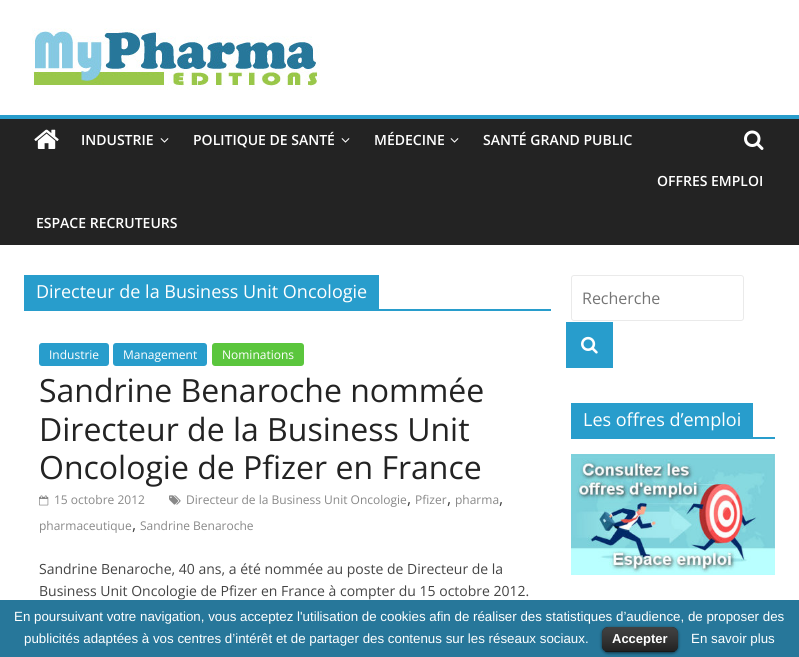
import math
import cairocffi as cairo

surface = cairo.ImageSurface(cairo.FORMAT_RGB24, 799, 657)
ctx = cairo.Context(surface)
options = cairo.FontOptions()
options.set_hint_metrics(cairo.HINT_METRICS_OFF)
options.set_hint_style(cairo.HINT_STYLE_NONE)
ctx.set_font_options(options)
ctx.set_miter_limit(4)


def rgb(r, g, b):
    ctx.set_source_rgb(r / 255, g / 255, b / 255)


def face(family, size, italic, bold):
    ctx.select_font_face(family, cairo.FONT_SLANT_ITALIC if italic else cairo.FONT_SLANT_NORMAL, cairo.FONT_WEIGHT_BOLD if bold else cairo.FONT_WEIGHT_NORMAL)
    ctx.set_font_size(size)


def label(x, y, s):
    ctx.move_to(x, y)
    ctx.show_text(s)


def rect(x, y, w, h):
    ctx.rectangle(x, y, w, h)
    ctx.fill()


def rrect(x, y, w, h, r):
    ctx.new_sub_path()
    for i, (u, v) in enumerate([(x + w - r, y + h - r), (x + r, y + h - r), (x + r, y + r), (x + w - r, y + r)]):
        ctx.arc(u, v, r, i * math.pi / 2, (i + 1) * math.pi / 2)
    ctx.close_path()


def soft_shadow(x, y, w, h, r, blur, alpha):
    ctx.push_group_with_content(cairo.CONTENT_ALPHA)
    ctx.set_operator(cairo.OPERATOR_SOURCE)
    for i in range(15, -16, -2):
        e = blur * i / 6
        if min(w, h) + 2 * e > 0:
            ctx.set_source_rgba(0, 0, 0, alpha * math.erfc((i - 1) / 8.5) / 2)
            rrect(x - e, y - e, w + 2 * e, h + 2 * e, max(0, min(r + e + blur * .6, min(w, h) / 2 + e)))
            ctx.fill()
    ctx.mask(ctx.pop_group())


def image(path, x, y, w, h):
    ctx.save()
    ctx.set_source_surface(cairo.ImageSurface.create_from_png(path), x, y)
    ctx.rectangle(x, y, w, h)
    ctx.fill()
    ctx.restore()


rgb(255, 255, 255)
ctx.paint()
image('image0.png', 32, 28, 288, 62)
rgb(35, 35, 35)
rect(0, 119, 799, 126)
rgb(40, 157, 204)
rect(0, 115, 799, 4)
image('image1.png', 34, 129, 25, 20)
image('image2.png', 744, 130, 20, 20)
face('Open Sans SemiBold', 14, 0, 0)
rgb(255, 255, 255)
label(81, 145, 'INDUSTRIE')
image('image3.png', 160, 138, 9, 5)
label(193, 145, 'POLITIQUE DE SANTÉ')
image('image3.png', 341, 138, 9, 5)
label(374, 145, 'MÉDECINE')
image('image3.png', 450, 138, 9, 5)
label(483, 145, 'SANTÉ GRAND PUBLIC')
label(657, 186, 'OFFRES EMPLOI')
label(36, 228, 'ESPACE RECRUTEURS')
rgb(40, 157, 204)
rect(24, 309, 527, 2)
rect(24, 275, 355, 34)
face('Open Sans', 18, 0, 0)
rgb(255, 255, 255)
label(36, 298, 'Directeur de la Business Unit Oncologie')
rgb(40, 157, 204)
rrect(39, 343, 70, 23, 3)
ctx.fill()
face('Open Sans', 12, 0, 0)
rgb(255, 255, 255)
label(49, 359, 'Industrie')
rgb(40, 157, 204)
rrect(113, 343, 94, 23, 3)
ctx.fill()
rgb(255, 255, 255)
label(123, 359, 'Management')
rgb(91, 198, 61)
rrect(212, 343, 92, 23, 3)
ctx.fill()
rgb(255, 255, 255)
label(222, 359, 'Nominations')
face('Open Sans', 32, 0, 0)
rgb(35, 35, 35)
label(39, 402, 'Sandrine Benaroche nommée')
label(39, 441, 'Directeur de la Business Unit')
label(39, 479, 'Oncologie de Pfizer en France')
image('image4.png', 169, 495, 12, 10)
face('Open Sans', 12, 0, 0)
rgb(136, 136, 136)
label(186, 504, 'Directeur de la Business Unit Oncologie')
face('Open Sans', 16, 0, 0)
rgb(68, 68, 68)
label(407, 504, ',')
face('Open Sans', 12, 0, 0)
rgb(136, 136, 136)
label(415, 504, 'Pfizer')
face('Open Sans', 16, 0, 0)
rgb(68, 68, 68)
label(447, 504, ',')
face('Open Sans', 12, 0, 0)
rgb(136, 136, 136)
label(455, 504, 'pharma')
face('Open Sans', 16, 0, 0)
rgb(68, 68, 68)
label(499, 504, ',')
face('Open Sans', 12, 0, 0)
rgb(136, 136, 136)
label(39, 530, 'pharmaceutique')
face('Open Sans', 16, 0, 0)
rgb(68, 68, 68)
label(132, 530, ',')
face('Open Sans', 12, 0, 0)
rgb(136, 136, 136)
label(140, 530, 'Sandrine Benaroche')
image('image5.png', 39, 495, 10, 11)
label(54, 504, '15 octobre 2012')
face('Open Sans', 14, 0, 0)
rgb(68, 68, 68)
label(39, 574, 'Sandrine Benaroche, 40 ans, a été nommée au poste de Directeur de la')
label(39, 596, 'Business Unit Oncologie de Pfizer en France à compter du 15 octobre 2012.')
rrect(571.5, 275.5, 172, 45, 2.5)
rgb(234, 234, 234)
ctx.set_line_width(1)
ctx.stroke()
face('Open Sans', 16, 0, 0)
rgb(117, 117, 117)
label(582, 304, 'Recherche')
rgb(40, 157, 204)
rect(566, 322, 47, 46)
image('image6.png', 581, 336, 17, 18)
rect(571, 437, 204, 2)
rect(571, 403, 182, 34)
face('Open Sans', 18, 0, 0)
rgb(255, 255, 255)
label(583, 426, 'Les offres d’emploi')
image('image7.png', 571, 454, 204, 121)
rgb(39, 119, 154)
rect(0, 600, 799, 57)
face('Liberation Sans', 13.33, 0, 0)
rgb(255, 255, 255)
label(14, 621, 'En poursuivant votre navigation, vous acceptez l\'utilisation de cookies afin de réaliser des statistiques d’audience, de proposer des')
label(24, 643, 'publicités adaptées à vos centres d’intérêt et de partager des contenus sur les réseaux sociaux.')
rgb(0, 0, 0)
soft_shadow(602, 628, 76, 25, 6, 1.5, 0.6)
rgb(0, 0, 0)
rrect(602, 627, 76, 25, 6)
ctx.fill()
image('image8.png', 602, 627, 76, 25)
ctx.set_source_rgba(0, 0, 0, 0.25)
rect(605, 651, 70, 1)
face('Liberation Sans', 13, 0, 1)
rgb(255, 255, 255)
label(612, 643, 'Accepter')
face('Liberation Sans', 13.33, 0, 0)
label(691, 643, 'En savoir plus')
surface.write_to_png('render.png')
